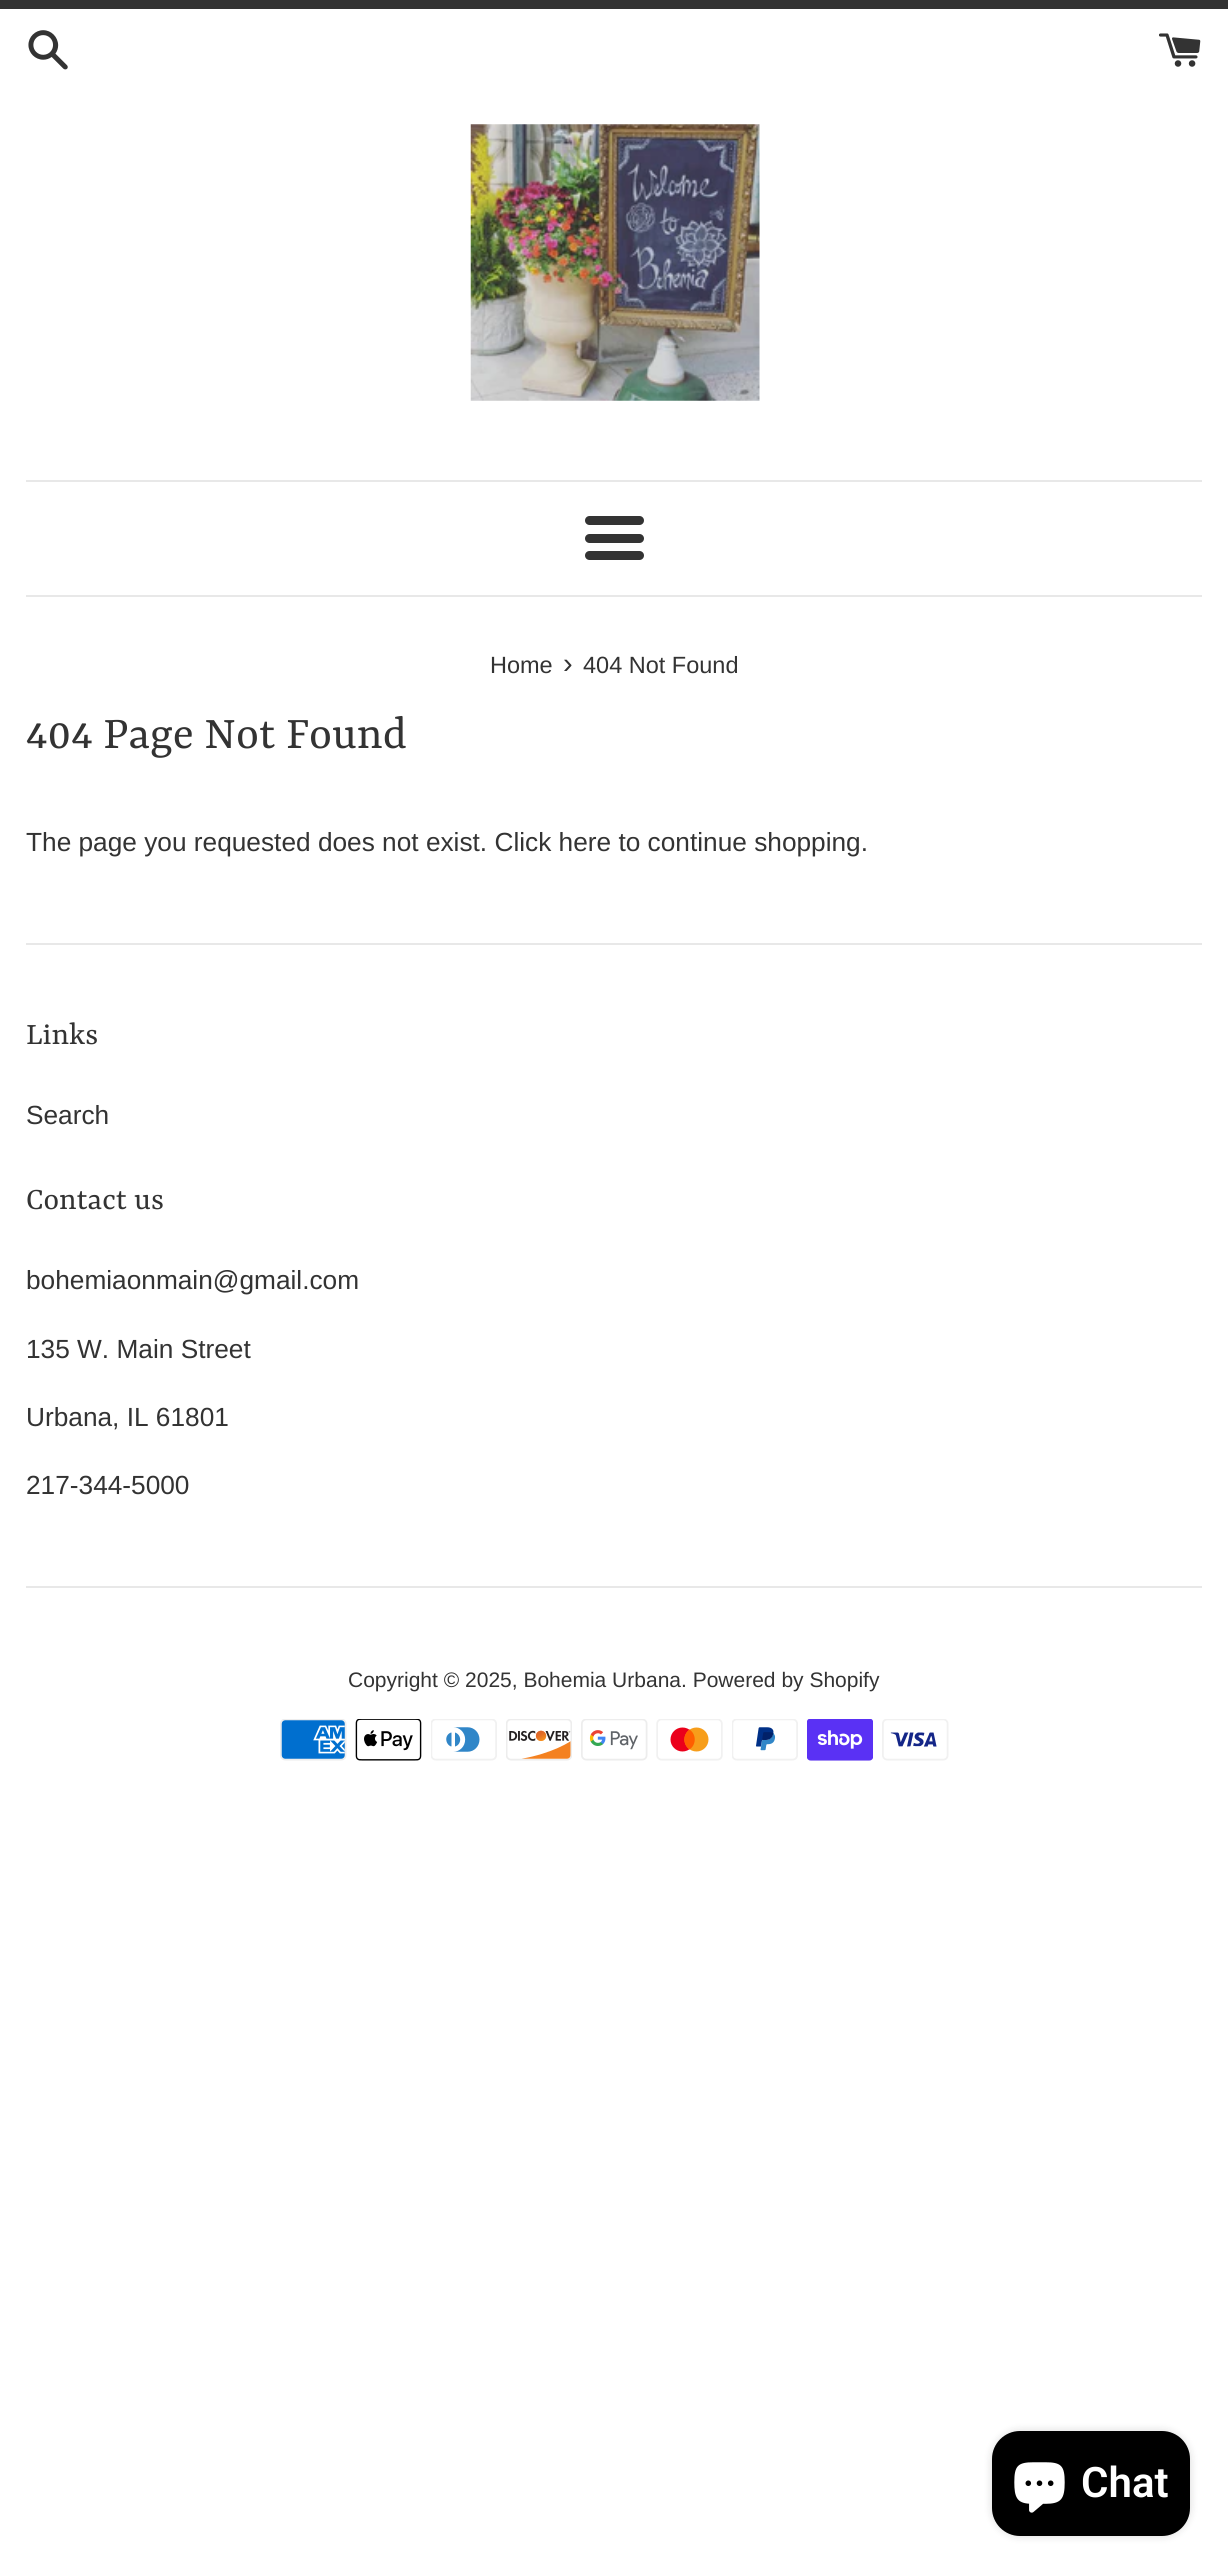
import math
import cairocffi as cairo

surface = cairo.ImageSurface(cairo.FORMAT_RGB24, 1228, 2571)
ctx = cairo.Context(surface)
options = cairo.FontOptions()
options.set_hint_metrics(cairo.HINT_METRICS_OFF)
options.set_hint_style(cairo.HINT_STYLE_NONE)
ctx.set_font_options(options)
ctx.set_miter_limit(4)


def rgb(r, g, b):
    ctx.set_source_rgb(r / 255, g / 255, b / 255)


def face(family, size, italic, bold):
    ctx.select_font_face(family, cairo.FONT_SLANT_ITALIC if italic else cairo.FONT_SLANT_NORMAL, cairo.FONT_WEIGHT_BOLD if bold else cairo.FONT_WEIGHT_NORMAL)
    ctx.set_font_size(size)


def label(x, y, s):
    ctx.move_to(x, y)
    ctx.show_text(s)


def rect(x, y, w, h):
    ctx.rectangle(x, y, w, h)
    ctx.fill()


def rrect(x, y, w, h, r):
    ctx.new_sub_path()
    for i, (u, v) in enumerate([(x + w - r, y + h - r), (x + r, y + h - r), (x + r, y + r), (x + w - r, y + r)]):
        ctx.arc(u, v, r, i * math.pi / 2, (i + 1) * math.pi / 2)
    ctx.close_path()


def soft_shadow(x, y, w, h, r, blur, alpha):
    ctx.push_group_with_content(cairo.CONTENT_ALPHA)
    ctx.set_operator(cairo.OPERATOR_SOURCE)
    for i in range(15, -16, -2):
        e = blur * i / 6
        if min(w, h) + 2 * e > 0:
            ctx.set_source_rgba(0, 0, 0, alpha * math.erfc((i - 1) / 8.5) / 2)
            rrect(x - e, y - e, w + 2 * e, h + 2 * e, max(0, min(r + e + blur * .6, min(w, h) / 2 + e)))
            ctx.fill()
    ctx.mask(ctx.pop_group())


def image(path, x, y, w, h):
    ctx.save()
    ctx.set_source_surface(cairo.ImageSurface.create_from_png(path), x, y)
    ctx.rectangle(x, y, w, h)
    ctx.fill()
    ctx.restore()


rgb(255, 255, 255)
ctx.paint()
rgb(51, 51, 51)
rect(0, 0, 1228, 9)
image('image0.png', 28, 30, 40, 40)
image('image1.png', 1159, 33, 42, 34)
image('image2.png', 470, 124, 290, 277)
rgb(232, 232, 232)
rect(26, 480, 1176, 2)
rgb(51, 51, 51)
rrect(585, 516, 59, 9, 4.5)
ctx.fill()
rrect(585, 534, 59, 9, 4.5)
ctx.fill()
rrect(585, 551, 59, 9, 4.5)
ctx.fill()
rgb(232, 232, 232)
rect(26, 595, 1176, 2)
face('Liberation Sans', 23.5, 0, 0)
rgb(51, 51, 51)
label(490, 673, 'Home')
face('Liberation Sans', 29, 0, 0)
label(563, 673, '›')
face('Liberation Sans', 23.5, 0, 0)
label(583, 673, '404 Not Found')
face('Rasa', 49, 0, 0)
label(26, 748, '404 Page Not Found')
face('Liberation Sans', 26.25, 0, 0)
label(26, 851, 'The page you requested does not exist. Click here to continue shopping.')
rgb(232, 232, 232)
rect(26, 943, 1176, 2)
face('Rasa', 33.25, 0, 0)
rgb(51, 51, 51)
label(26, 1044, 'Links')
face('Liberation Sans', 26.25, 0, 0)
label(26, 1124, 'Search')
face('Rasa', 33.25, 0, 0)
label(26, 1209, 'Contact us')
face('Liberation Sans', 26.25, 0, 0)
label(26, 1289, 'bohemiaonmain@gmail.com')
label(26, 1358, '135 W. Main Street')
label(26, 1426, 'Urbana, IL 61801')
label(26, 1494, '217-344-5000')
rgb(232, 232, 232)
rect(26, 1586, 1176, 2)
face('Liberation Sans', 21, 0, 0)
rgb(51, 51, 51)
label(348, 1687, 'Copyright © 2025, Bohemia Urbana. Powered by Shopify')
image('image3.png', 280, 1719, 67, 42)
image('image4.png', 355, 1719, 67, 42)
image('image5.png', 431, 1719, 66, 42)
image('image6.png', 506, 1719, 66, 42)
image('image7.png', 581, 1719, 67, 42)
image('image8.png', 656, 1719, 67, 42)
image('image9.png', 732, 1719, 66, 42)
image('image10.png', 807, 1719, 66, 42)
image('image11.png', 882, 1719, 67, 42)
rgb(0, 0, 0)
soft_shadow(992, 2431, 198, 105, 28, 4.5, 0.15)
rgb(0, 0, 0)
rrect(992, 2431, 198, 105, 28)
ctx.fill()
image('image12.png', 1014, 2462, 51, 51)
face('Roboto SemiBold', 42, 0, 0)
rgb(255, 255, 255)
label(1081, 2497, 'Chat')
surface.write_to_png('render.png')
